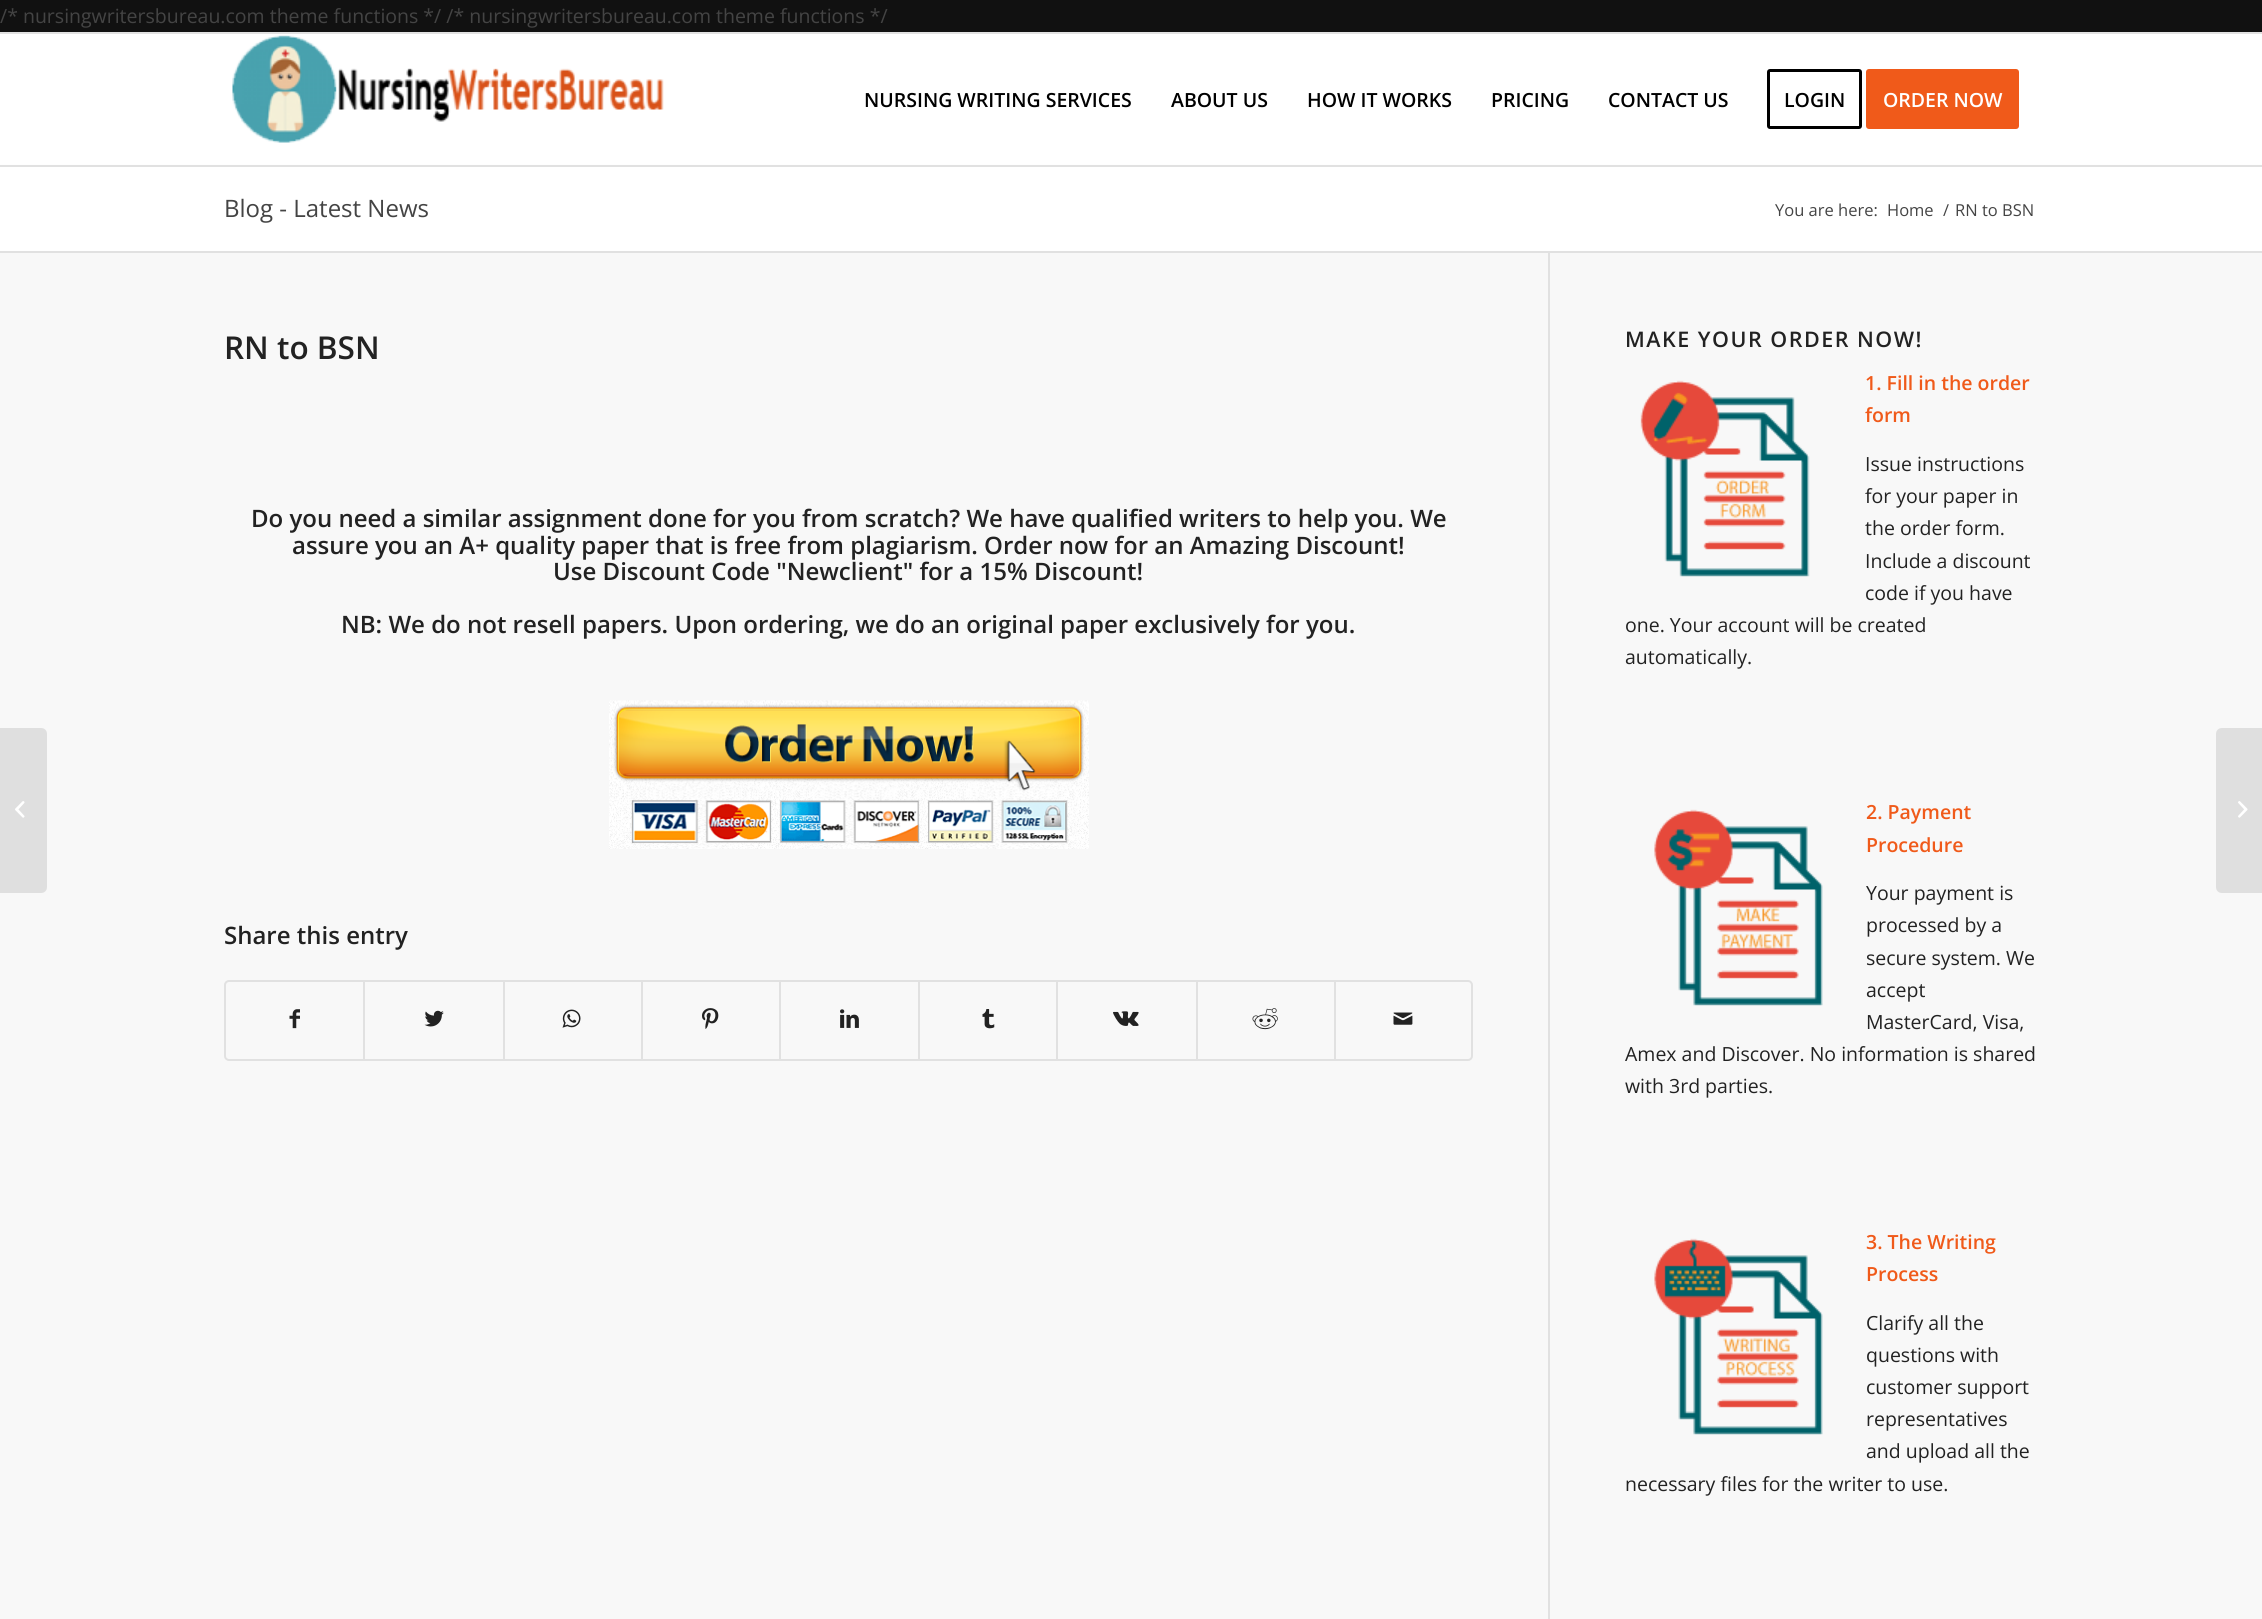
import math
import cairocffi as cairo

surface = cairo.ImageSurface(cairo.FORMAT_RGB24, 2262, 1619)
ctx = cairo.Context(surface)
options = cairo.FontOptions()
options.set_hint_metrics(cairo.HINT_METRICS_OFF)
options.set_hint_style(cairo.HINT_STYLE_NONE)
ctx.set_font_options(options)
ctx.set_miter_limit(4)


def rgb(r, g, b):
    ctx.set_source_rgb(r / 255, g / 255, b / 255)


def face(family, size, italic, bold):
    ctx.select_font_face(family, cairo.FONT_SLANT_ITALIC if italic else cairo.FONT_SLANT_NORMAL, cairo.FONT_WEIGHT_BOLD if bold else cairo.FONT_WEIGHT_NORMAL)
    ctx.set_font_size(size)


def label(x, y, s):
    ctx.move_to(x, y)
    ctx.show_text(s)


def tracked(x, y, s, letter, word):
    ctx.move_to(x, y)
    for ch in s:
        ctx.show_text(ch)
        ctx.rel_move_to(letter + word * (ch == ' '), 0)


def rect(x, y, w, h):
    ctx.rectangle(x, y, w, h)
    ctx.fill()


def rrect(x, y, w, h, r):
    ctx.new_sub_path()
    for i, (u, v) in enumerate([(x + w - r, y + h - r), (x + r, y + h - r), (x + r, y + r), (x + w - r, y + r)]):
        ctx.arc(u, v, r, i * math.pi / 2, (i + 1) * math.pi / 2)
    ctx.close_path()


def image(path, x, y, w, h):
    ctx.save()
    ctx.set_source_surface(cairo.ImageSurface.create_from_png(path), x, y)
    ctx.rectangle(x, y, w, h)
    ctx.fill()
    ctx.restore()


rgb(17, 17, 17)
ctx.paint()
face('Open Sans', 19.5, 0, 0)
rgb(68, 68, 68)
label(0, 23, '/* nursingwritersbureau.com theme functions */ /* nursingwritersbureau.com theme functions */')
rgb(225, 225, 225)
rect(0, 32, 2262, 2)
rect(0, 165, 2262, 2)
rgb(255, 255, 255)
rect(0, 34, 2262, 130)
image('image0.png', 232, 35, 432, 108)
face('Open Sans SemiBold', 19.5, 0, 0)
rgb(0, 0, 0)
label(864, 107, 'NURSING WRITING SERVICES')
label(1171, 107, 'ABOUT US')
label(1307, 107, 'HOW IT WORKS')
label(1491, 107, 'PRICING')
label(1608, 107, 'CONTACT US')
rrect(1768.5, 70.5, 92, 57, 1.5)
ctx.set_line_width(3)
ctx.stroke()
label(1784, 107, 'LOGIN')
rgb(240, 90, 26)
rrect(1867.5, 70.5, 150, 57, 1.5)
ctx.fill_preserve()
ctx.stroke()
rgb(255, 255, 255)
label(1883, 107, 'ORDER NOW')
rgb(248, 248, 248)
rect(0, 253, 2262, 1366)
rgb(223, 223, 223)
ctx.new_path()
ctx.move_to(0, 728)
ctx.line_to(41, 728)
ctx.curve_to(44.5, 728, 47, 730.5, 47, 734)
ctx.line_to(47, 887)
ctx.curve_to(47, 890.5, 44.5, 893, 41, 893)
ctx.line_to(0, 893)
ctx.close_path()
ctx.fill()
image('image1.png', 15, 801, 10, 17)
rgb(255, 255, 255)
rect(0, 167, 2262, 84)
rgb(254, 254, 254)
rect(0, 164, 2262, 1)
face('Open Sans', 24, 0, 0)
rgb(68, 68, 68)
label(224, 217, 'Blog - Latest News')
face('Open Sans', 16.5, 0, 0)
label(1775, 216, 'You are here:')
label(1887, 216, 'Home')
label(1943, 216, '/')
label(1955, 216, 'RN to BSN')
rgb(225, 225, 225)
rect(0, 251, 2262, 2)
face('Open Sans SemiBold', 31.5, 0, 0)
rgb(34, 34, 34)
label(224, 359, 'RN to BSN')
face('Open Sans SemiBold', 24, 0, 0)
label(251, 527, 'Do you need a similar assignment done for you from scratch? We have qualified writers to help you. We')
label(292, 554, 'assure you an A+ quality paper that is free from plagiarism. Order now for an Amazing Discount!')
label(553, 580, 'Use Discount Code "Newclient" for a 15% Discount!')
label(341, 633, 'NB: We do not resell papers. Upon ordering, we do an original paper exclusively for you.')
image('image2.png', 609, 700, 480, 149)
label(224, 944, 'Share this entry')
rrect(225, 981, 1247, 79, 4)
rgb(225, 225, 225)
ctx.set_line_width(2)
ctx.stroke()
image('image3.png', 289, 1009, 11, 20)
rect(363, 981, 2, 78)
image('image4.png', 424, 1010, 20, 17)
rect(503, 981, 2, 78)
image('image5.png', 562, 1009, 19, 19)
rect(641, 981, 2, 78)
image('image6.png', 702, 1008, 17, 21)
rect(779, 981, 2, 78)
image('image7.png', 840, 1009, 19, 19)
rect(918, 981, 2, 78)
image('image8.png', 982, 1009, 13, 20)
rect(1056, 981, 2, 78)
image('image9.png', 1113, 1011, 26, 15)
rect(1196, 981, 2, 78)
image('image10.png', 1252, 1008, 26, 22)
rect(1334, 981, 2, 78)
image('image11.png', 1393, 1012, 20, 13)
rect(1548, 252, 2, 1367)
face('Open Sans SemiBold', 21.5, 0, 0)
rgb(34, 34, 34)
tracked(1625, 347, 'MAKE YOUR ORDER NOW!', 1.5, 0)
image('image12.png', 1640, 380, 170, 197)
face('Open Sans SemiBold', 19.5, 0, 0)
rgb(240, 90, 26)
label(1865, 390, '1. Fill in the order')
label(1865, 422, 'form')
face('Open Sans', 19.5, 0, 0)
rgb(34, 34, 34)
label(1865, 471, 'Issue instructions')
label(1865, 503, 'for your paper in')
label(1865, 535, 'the order form.')
label(1865, 568, 'Include a discount')
label(1865, 600, 'code if you have')
label(1625, 632, 'one. Your account will be created')
label(1625, 664, 'automatically.')
image('image13.png', 1654, 809, 169, 197)
face('Open Sans SemiBold', 19.5, 0, 0)
rgb(240, 90, 26)
label(1866, 819, '2. Payment')
label(1866, 852, 'Procedure')
face('Open Sans', 19.5, 0, 0)
rgb(34, 34, 34)
label(1866, 900, 'Your payment is')
label(1866, 932, 'processed by a')
label(1866, 965, 'secure system. We')
label(1866, 997, 'accept')
label(1866, 1029, 'MasterCard, Visa,')
label(1625, 1061, 'Amex and Discover. No information is shared')
label(1625, 1093, 'with 3rd parties.')
image('image14.png', 1654, 1238, 169, 197)
face('Open Sans SemiBold', 19.5, 0, 0)
rgb(240, 90, 26)
label(1866, 1249, '3. The Writing')
label(1866, 1281, 'Process')
face('Open Sans', 19.5, 0, 0)
rgb(34, 34, 34)
label(1866, 1330, 'Clarify all the')
label(1866, 1362, 'questions with')
label(1866, 1394, 'customer support')
label(1866, 1426, 'representatives')
label(1866, 1458, 'and upload all the')
label(1625, 1491, 'necessary files for the writer to use.')
rgb(223, 223, 223)
ctx.new_path()
ctx.move_to(2222, 728)
ctx.line_to(2262, 728)
ctx.line_to(2262, 893)
ctx.line_to(2222, 893)
ctx.curve_to(2218.5, 893, 2216, 890.5, 2216, 887)
ctx.line_to(2216, 734)
ctx.curve_to(2216, 730.5, 2218.5, 728, 2222, 728)
ctx.close_path()
ctx.fill()
image('image15.png', 2238, 801, 10, 17)
surface.write_to_png('render.png')
